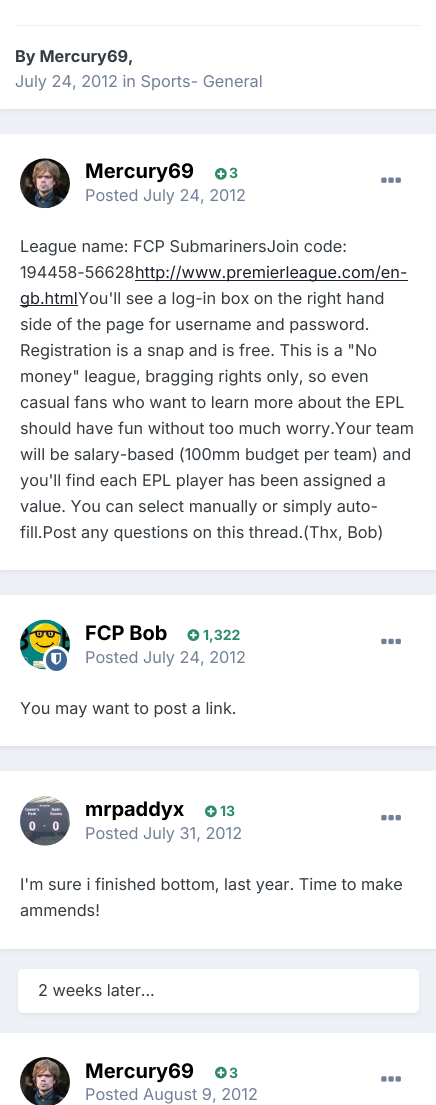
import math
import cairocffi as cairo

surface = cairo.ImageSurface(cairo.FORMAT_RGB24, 436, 1105)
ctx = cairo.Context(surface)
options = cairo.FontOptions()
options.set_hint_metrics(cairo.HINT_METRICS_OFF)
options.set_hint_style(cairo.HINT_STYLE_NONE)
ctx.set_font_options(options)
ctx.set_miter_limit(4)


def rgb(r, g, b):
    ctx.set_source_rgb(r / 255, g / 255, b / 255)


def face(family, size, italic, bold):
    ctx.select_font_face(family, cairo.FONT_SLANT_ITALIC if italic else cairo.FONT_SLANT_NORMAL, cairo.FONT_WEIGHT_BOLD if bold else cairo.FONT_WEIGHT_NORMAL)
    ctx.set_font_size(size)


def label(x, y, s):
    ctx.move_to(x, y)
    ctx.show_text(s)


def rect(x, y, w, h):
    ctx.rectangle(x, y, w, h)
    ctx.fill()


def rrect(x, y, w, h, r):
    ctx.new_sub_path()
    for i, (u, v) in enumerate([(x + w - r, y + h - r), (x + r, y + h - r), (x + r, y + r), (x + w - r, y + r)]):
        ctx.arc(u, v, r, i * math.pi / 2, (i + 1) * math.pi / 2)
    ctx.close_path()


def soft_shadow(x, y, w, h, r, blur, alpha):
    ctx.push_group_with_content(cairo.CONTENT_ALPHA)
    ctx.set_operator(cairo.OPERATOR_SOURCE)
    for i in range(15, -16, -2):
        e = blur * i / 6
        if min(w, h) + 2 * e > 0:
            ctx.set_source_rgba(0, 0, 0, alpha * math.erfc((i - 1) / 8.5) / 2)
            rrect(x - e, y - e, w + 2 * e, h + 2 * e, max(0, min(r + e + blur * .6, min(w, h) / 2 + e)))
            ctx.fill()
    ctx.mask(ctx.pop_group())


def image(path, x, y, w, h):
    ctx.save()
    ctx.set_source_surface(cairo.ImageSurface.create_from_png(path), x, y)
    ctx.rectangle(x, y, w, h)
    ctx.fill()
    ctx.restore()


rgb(237, 240, 244)
ctx.paint()
rgb(45, 55, 72)
soft_shadow(1, -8, 434, 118, 0, 2.5, 0.1)
rgb(255, 255, 255)
rect(0, 0, 436, 109)
rgb(239, 239, 240)
rect(15, 25, 406, 1)
face('Inter', 16.25, 0, 1)
rgb(53, 60, 65)
label(15, 62, 'By Mercury69,')
face('Inter', 16.25, 0, 0)
rgb(113, 128, 150)
label(15, 87, 'July 24, 2012 in Sports- General')
rgb(45, 55, 72)
soft_shadow(1, 138, 434, 433, 0, 2.5, 0.1)
rgb(255, 255, 255)
rect(0, 134, 436, 436)
image('image0.png', 20, 158, 50, 51)
face('Inter', 20, 0, 1)
rgb(0, 0, 0)
label(85, 178, 'Mercury69')
image('image1.png', 215, 168, 12, 12)
face('Inter', 14, 0, 1)
rgb(44, 140, 105)
label(229, 178, '3')
face('Inter', 16.25, 0, 0)
rgb(113, 128, 150)
label(85, 201, 'Posted July 24, 2012')
image('image2.png', 381, 177, 20, 6)
rgb(53, 60, 65)
label(20, 252, 'League name: FCP SubmarinersJoin code:')
label(20, 278, '194458-56628')
rgb(26, 32, 44)
rect(135, 280, 273, 1)
label(135, 278, 'http://www.premierleague.com/en-')
rect(20, 305, 58, 1)
label(20, 304, 'gb.html')
rgb(53, 60, 65)
label(78, 304, 'You\'ll see a log-in box on the right hand')
label(20, 330, 'side of the page for username and password.')
label(20, 356, 'Registration is a snap and is free. This is a "No')
label(20, 382, 'money" league, bragging rights only, so even')
label(20, 408, 'casual fans who want to learn more about the EPL')
label(20, 434, 'should have fun without too much worry.Your team')
label(20, 460, 'will be salary-based (100mm budget per team) and')
label(20, 486, 'you\'ll find each EPL player has been assigned a')
label(20, 512, 'value. You can select manually or simply auto-')
label(20, 538, 'fill.Post any questions on this thread.(Thx, Bob)')
rgb(45, 55, 72)
soft_shadow(1, 599, 434, 149, 0, 2.5, 0.1)
rgb(255, 255, 255)
rect(0, 595, 436, 151)
image('image3.png', 20, 619, 50, 51)
rgb(61, 101, 148)
rrect(44.5, 647.5, 24, 25, 12)
ctx.fill_preserve()
rgb(255, 255, 255)
ctx.set_line_width(3)
ctx.stroke()
image('image4.png', 51, 652, 11, 13)
face('Inter', 20, 0, 1)
rgb(0, 0, 0)
label(85, 640, 'FCP Bob')
image('image5.png', 187, 629, 13, 12)
face('Inter', 14, 0, 1)
rgb(44, 140, 105)
label(203, 640, '1,322')
face('Inter', 16.25, 0, 0)
rgb(113, 128, 150)
label(85, 663, 'Posted July 24, 2012')
image('image6.png', 381, 638, 20, 7)
rgb(53, 60, 65)
label(20, 714, 'You may want to post a link.')
rgb(45, 55, 72)
soft_shadow(1, 775, 434, 175, 0, 2.5, 0.1)
rgb(255, 255, 255)
rect(0, 771, 436, 178)
image('image7.png', 20, 796, 50, 50)
face('Inter', 20, 0, 1)
rgb(0, 0, 0)
label(85, 816, 'mrpaddyx')
image('image8.png', 205, 805, 12, 13)
face('Inter', 14, 0, 1)
rgb(44, 140, 105)
label(220, 816, '13')
face('Inter', 16.25, 0, 0)
rgb(113, 128, 150)
label(85, 839, 'Posted July 31, 2012')
image('image9.png', 381, 815, 20, 6)
rgb(53, 60, 65)
label(20, 890, 'I\'m sure i finished bottom, last year. Time to make')
label(20, 916, 'ammends!')
rgb(45, 55, 72)
soft_shadow(19, 973, 399, 41, 4, 2.5, 0.1)
rgb(255, 255, 255)
rrect(18, 969, 401, 44, 5)
ctx.fill()
rgb(53, 60, 65)
label(38, 996, '2 weeks later...')
rgb(255, 255, 255)
rect(0, 1033, 436, 72)
image('image10.png', 20, 1057, 50, 48)
face('Inter', 20, 0, 1)
rgb(0, 0, 0)
label(85, 1078, 'Mercury69')
image('image11.png', 215, 1066, 12, 13)
face('Inter', 14, 0, 1)
rgb(44, 140, 105)
label(229, 1078, '3')
face('Inter', 16.25, 0, 0)
rgb(113, 128, 150)
label(85, 1100, 'Posted August 9, 2012')
image('image12.png', 381, 1076, 20, 6)
surface.write_to_png('render.png')
